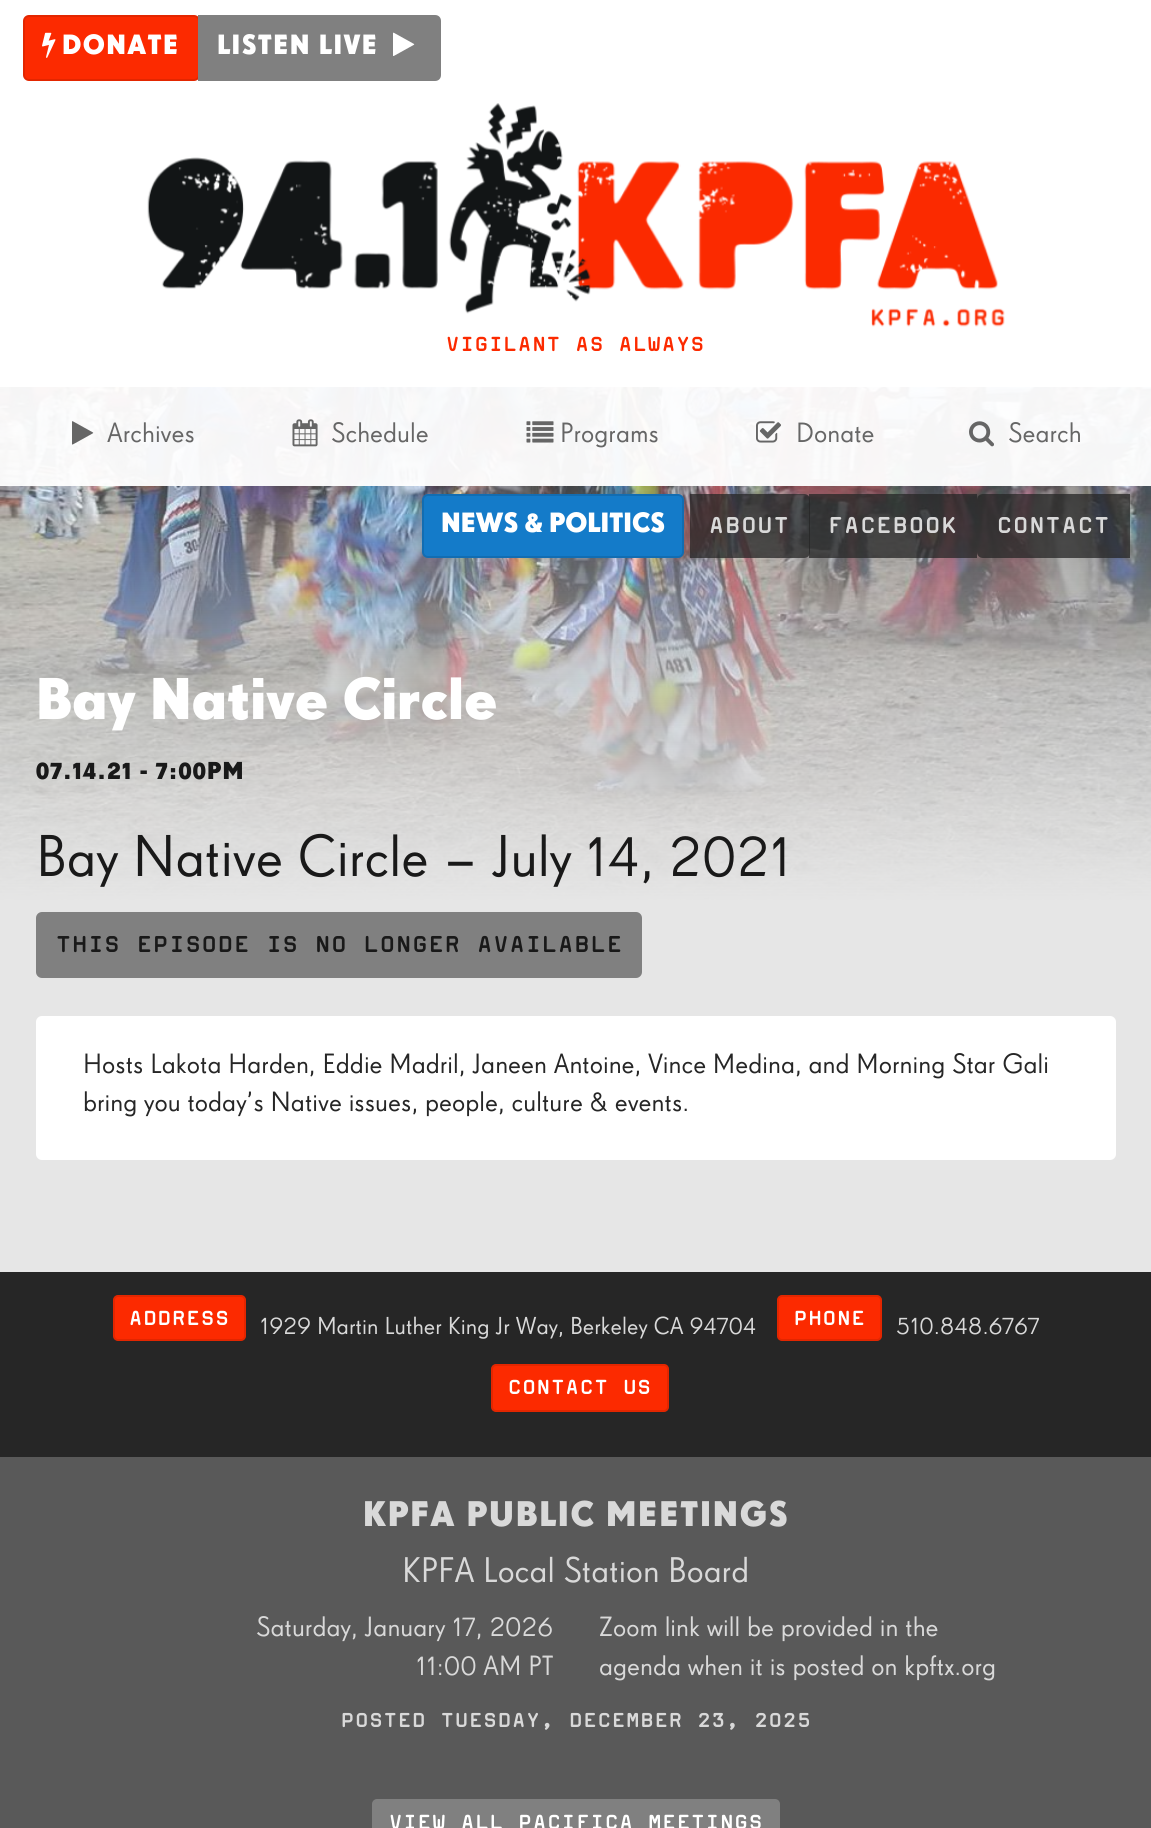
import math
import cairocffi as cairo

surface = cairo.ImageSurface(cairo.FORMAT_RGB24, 1151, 1828)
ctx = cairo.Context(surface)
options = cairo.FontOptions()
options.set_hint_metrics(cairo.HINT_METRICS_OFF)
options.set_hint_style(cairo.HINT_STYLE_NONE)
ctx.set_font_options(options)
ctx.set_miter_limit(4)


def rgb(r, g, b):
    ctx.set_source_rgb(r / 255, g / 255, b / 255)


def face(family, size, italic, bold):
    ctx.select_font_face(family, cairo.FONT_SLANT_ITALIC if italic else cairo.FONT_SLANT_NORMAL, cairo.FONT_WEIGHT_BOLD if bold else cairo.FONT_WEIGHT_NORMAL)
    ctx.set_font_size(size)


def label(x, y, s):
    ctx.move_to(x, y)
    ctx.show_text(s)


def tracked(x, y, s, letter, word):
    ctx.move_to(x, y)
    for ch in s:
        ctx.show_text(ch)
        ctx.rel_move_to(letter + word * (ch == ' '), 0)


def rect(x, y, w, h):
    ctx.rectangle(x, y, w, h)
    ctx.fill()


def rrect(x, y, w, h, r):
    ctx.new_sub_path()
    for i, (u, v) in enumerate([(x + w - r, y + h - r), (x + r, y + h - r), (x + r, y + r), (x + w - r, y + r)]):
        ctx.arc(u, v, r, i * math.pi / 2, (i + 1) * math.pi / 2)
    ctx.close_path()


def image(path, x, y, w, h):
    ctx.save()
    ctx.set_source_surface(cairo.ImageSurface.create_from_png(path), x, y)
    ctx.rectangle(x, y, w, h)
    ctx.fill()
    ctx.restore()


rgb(230, 230, 230)
ctx.paint()
rgb(255, 255, 255)
rect(0, 0, 1151, 387)
rgb(252, 42, 0)
rrect(24, 16, 175, 64, 5)
ctx.fill_preserve()
rgb(227, 38, 0)
ctx.stroke()
image('image0.png', 42, 32, 14, 26)
face('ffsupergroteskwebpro', 27, 0, 1)
rgb(255, 255, 255)
tracked(62, 54, 'DONATE', 1.35, 0)
rgb(128, 128, 128)
ctx.new_path()
ctx.move_to(199, 16)
ctx.line_to(435, 16)
ctx.curve_to(438, 16, 440, 18, 440, 21)
ctx.line_to(440, 75)
ctx.curve_to(440, 78, 438, 80, 435, 80)
ctx.line_to(199, 80)
ctx.close_path()
ctx.fill_preserve()
ctx.stroke()
rgb(255, 255, 255)
tracked(217, 54, 'LISTEN LIVE', 1.35, 0)
image('image1.png', 393, 32, 22, 24)
image('image2.png', 147, 103, 858, 224)
face('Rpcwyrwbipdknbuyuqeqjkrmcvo', 24, 0, 1)
rgb(252, 42, 0)
tracked(446, 351, 'VIGILANT AS ALWAYS', 1.2, 0)
image('image3.png', 0, 387, 1151, 513)
ctx.set_source_rgba(1, 1, 1, 0.95)
rect(0, 387, 1151, 99)
image('image4.png', 72, 421, 22, 24)
face('ffsupergroteskwebpro', 27, 0, 0)
rgb(102, 102, 102)
label(107, 442, 'Archives')
image('image5.png', 292, 419, 26, 28)
label(331, 442, 'Schedule')
image('image6.png', 526, 421, 28, 22)
label(560, 442, 'Programs')
image('image7.png', 756, 421, 25, 22)
label(796, 442, 'Donate')
image('image8.png', 969, 421, 25, 26)
label(1008, 442, 'Search')
rgb(20, 123, 201)
rrect(423, 495, 260, 62, 5)
ctx.fill_preserve()
rgb(18, 109, 178)
ctx.stroke()
face('ffsupergroteskwebpro', 27, 0, 1)
rgb(255, 255, 255)
label(441, 532, 'NEWS & POLITICS')
ctx.set_source_rgba(0.149, 0.149, 0.149, 0.75)
rect(809, 494, 168, 64)
ctx.new_path()
ctx.move_to(690, 494)
ctx.line_to(804, 494)
ctx.curve_to(807.5, 494, 810, 496.5, 810, 500)
ctx.line_to(810, 552)
ctx.curve_to(810, 555.5, 807.5, 558, 804, 558)
ctx.line_to(690, 558)
ctx.close_path()
ctx.fill()
face('Rpcwyrwbipdknbuyuqeqjkrmcvo', 27, 0, 1)
rgb(217, 217, 217)
tracked(709, 533, 'ABOUT', 1.35, 0)
tracked(828, 533, 'FACEBOOK', 1.35, 0)
ctx.set_source_rgba(0.149, 0.149, 0.149, 0.75)
ctx.new_path()
ctx.move_to(983, 494)
ctx.line_to(1130, 494)
ctx.line_to(1130, 558)
ctx.line_to(983, 558)
ctx.curve_to(979.5, 558, 977, 555.5, 977, 552)
ctx.line_to(977, 500)
ctx.curve_to(977, 496.5, 979.5, 494, 983, 494)
ctx.close_path()
ctx.fill()
rgb(217, 217, 217)
tracked(997, 533, 'CONTACT', 1.35, 0)
face('ffsupergroteskwebpro', 57, 0, 1)
rgb(255, 255, 255)
label(36, 719, 'Bay Native Circle')
face('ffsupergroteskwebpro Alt', 23.75, 0, 1)
rgb(25, 25, 25)
tracked(36, 779, '07.14.21 - 7:00PM', 1.2, 0)
face('ffsupergroteskwebpro Alt', 57, 0, 0)
label(36, 876, 'Bay Native Circle – July 14, 2021')
rgb(128, 128, 128)
rrect(37, 913, 604, 64, 5)
ctx.fill_preserve()
ctx.stroke()
face('Rpcwyrwbipdknbuyuqeqjkrmcvo', 27, 0, 1)
rgb(25, 25, 25)
tracked(56, 952, 'THIS EPISODE IS NO LONGER AVAILABLE', 1.35, 0)
rgb(255, 255, 255)
rrect(36, 1016, 1080, 144, 6)
ctx.fill()
face('ffsupergroteskwebpro', 27, 0, 0)
rgb(38, 38, 38)
label(83, 1073, 'Hosts Lakota Harden, Eddie Madril, Janeen Antoine, Vince Medina, and Morning Star Gali')
label(83, 1111, 'bring you today’s Native issues, people, culture & events.')
rect(0, 1272, 1151, 185)
rgb(252, 42, 0)
rrect(114, 1296, 131, 44, 4)
ctx.fill_preserve()
rgb(227, 38, 0)
ctx.stroke()
face('Rpcwyrwbipdknbuyuqeqjkrmcvo', 24, 0, 1)
rgb(255, 255, 255)
tracked(129, 1325, 'ADDRESS', 1.2, 0)
face('ffsupergroteskwebpro Alt', 23.75, 0, 0)
rgb(217, 217, 217)
label(260, 1334, '1929 Martin Luther King Jr Way, Berkeley CA 94704')
rgb(252, 42, 0)
rrect(778, 1296, 103, 44, 4)
ctx.fill_preserve()
rgb(227, 38, 0)
ctx.stroke()
face('Rpcwyrwbipdknbuyuqeqjkrmcvo', 24, 0, 1)
rgb(255, 255, 255)
tracked(794, 1325, 'PHONE', 1.2, 0)
face('ffsupergroteskwebpro Alt', 23.75, 0, 0)
rgb(217, 217, 217)
label(896, 1334, '510.848.6767')
rgb(252, 42, 0)
rrect(492, 1365, 176, 46, 4)
ctx.fill_preserve()
rgb(227, 38, 0)
ctx.stroke()
face('Rpcwyrwbipdknbuyuqeqjkrmcvo', 24, 0, 1)
rgb(255, 255, 255)
tracked(508, 1394, 'CONTACT US', 1.2, 0)
rgb(89, 89, 89)
rect(0, 1457, 1151, 371)
face('ffsupergroteskwebpro', 34.5, 0, 1)
rgb(217, 217, 217)
tracked(363, 1526, 'KPFA PUBLIC MEETINGS', 1.75, 0)
face('ffsupergroteskwebpro', 34.5, 0, 0)
label(402, 1582, 'KPFA Local Station Board')
face('ffsupergroteskwebpro Alt', 27, 0, 0)
label(256, 1636, 'Saturday, January 17, 2026')
label(416, 1675, '11:00 AM PT')
face('ffsupergroteskwebpro', 27, 0, 0)
label(599, 1636, 'Zoom link will be provided in the')
label(599, 1675, 'agenda when it is posted on kpftx.org')
face('Rpcwyrwbipdknbuyuqeqjkrmcvo', 23.75, 0, 1)
tracked(341, 1727, 'POSTED TUESDAY, DECEMBER 23, 2025', 1.2, 0)
rgb(128, 128, 128)
rrect(373, 1800, 406, 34, 4)
ctx.fill_preserve()
ctx.stroke()
face('Rpcwyrwbipdknbuyuqeqjkrmcvo', 24, 0, 1)
rgb(255, 255, 255)
tracked(389, 1829, 'VIEW ALL PACIFICA MEETINGS', 1.2, 0)
surface.write_to_png('render.png')
